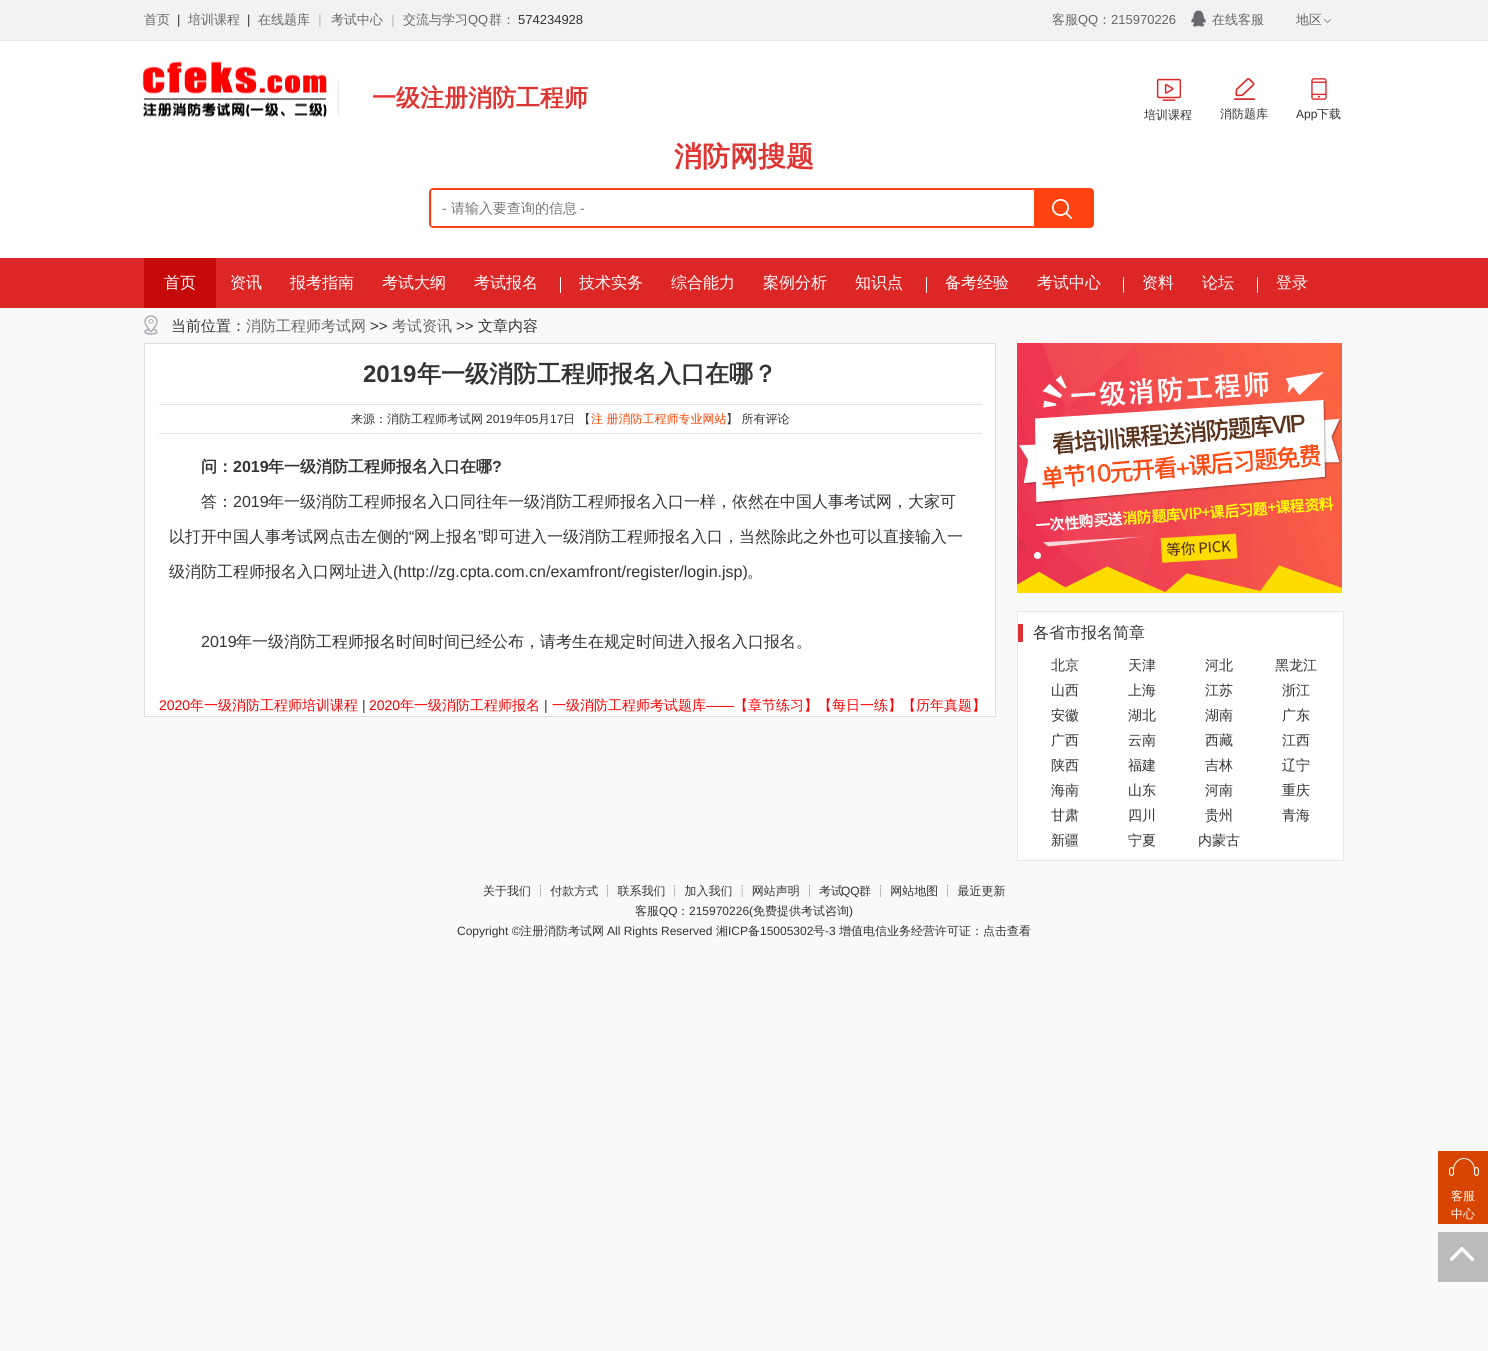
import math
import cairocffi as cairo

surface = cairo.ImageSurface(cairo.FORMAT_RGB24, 1488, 1351)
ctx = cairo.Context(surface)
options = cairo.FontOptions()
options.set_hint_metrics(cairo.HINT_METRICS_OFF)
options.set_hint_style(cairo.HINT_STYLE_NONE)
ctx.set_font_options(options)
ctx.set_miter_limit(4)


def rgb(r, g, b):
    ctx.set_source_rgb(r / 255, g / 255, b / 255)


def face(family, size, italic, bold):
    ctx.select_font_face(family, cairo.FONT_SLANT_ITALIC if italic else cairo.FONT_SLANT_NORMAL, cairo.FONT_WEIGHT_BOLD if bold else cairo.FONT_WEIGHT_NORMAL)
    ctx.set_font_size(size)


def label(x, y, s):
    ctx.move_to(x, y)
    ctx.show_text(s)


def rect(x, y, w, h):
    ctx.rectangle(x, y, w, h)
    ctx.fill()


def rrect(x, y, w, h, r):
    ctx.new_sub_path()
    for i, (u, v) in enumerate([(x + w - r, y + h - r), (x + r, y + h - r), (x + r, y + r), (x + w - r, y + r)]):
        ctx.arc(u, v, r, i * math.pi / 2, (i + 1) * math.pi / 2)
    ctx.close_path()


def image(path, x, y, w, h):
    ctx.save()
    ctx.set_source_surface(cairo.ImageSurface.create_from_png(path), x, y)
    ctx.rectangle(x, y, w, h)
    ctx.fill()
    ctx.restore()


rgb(249, 249, 249)
ctx.paint()
rgb(242, 242, 242)
rect(0, 0, 1488, 40)
rgb(229, 229, 229)
rect(0, 40, 1488, 1)
face('WenQuanYi Zen Hei Medium', 13, 0, 0)
rgb(102, 102, 102)
label(144, 24, '首页')
face('Liberation Sans', 13, 0, 0)
rgb(51, 51, 51)
label(177, 24, '|')
face('WenQuanYi Zen Hei Medium', 13, 0, 0)
rgb(102, 102, 102)
label(188, 24, '培训课程')
face('Liberation Sans', 13, 0, 0)
rgb(51, 51, 51)
label(247, 24, '|')
face('WenQuanYi Zen Hei Medium', 13, 0, 0)
rgb(102, 102, 102)
label(258, 24, '在线题库')
face('Liberation Sans', 13, 0, 1)
rgb(204, 204, 204)
label(318, 24, '|')
face('WenQuanYi Zen Hei Medium', 13, 0, 0)
rgb(102, 102, 102)
label(331, 24, '考试中心')
face('Liberation Sans', 13, 0, 1)
rgb(204, 204, 204)
label(391, 24, '|')
face('WenQuanYi Zen Hei Medium', 13, 0, 0)
rgb(102, 102, 102)
label(403, 24, '交流与学习')
face('Liberation Sans', 13, 0, 0)
label(468, 24, 'QQ')
face('WenQuanYi Zen Hei Medium', 13, 0, 0)
label(489, 24, '群：')
face('Liberation Sans', 13, 0, 0)
rgb(51, 51, 51)
label(518, 24, '574234928')
face('WenQuanYi Zen Hei Medium', 13, 0, 0)
rgb(102, 102, 102)
label(1052, 24, '客服')
face('Liberation Sans', 13, 0, 0)
label(1078, 24, 'QQ')
face('WenQuanYi Zen Hei Medium', 13, 0, 0)
label(1098, 24, '：')
face('Liberation Sans', 13, 0, 0)
label(1111, 24, '215970226')
image('image0.png', 1191, 10, 15, 17)
face('WenQuanYi Zen Hei Medium', 13, 0, 0)
label(1212, 24, '在线客服')
label(1296, 24, '地区')
image('image1.png', 1324, 19, 7, 4)
rgb(255, 255, 255)
rect(0, 41, 1488, 217)
image('image2.png', 143, 61, 184, 57)
rgb(234, 234, 234)
rect(338, 81, 1, 35)
face('WenQuanYi Zen Hei', 24, 0, 1)
rgb(223, 53, 50)
label(372, 106, '一级注册消防工程师')
image('image3.png', 1156, 78, 25, 23)
face('WenQuanYi Zen Hei Medium', 12, 0, 0)
rgb(51, 51, 51)
label(1144, 119, '培训课程')
image('image4.png', 1234, 78, 21, 22)
label(1220, 118, '消防题库')
image('image5.png', 1311, 78, 16, 22)
face('Liberation Sans', 12, 0, 0)
label(1296, 118, 'App')
face('WenQuanYi Zen Hei Medium', 12, 0, 0)
label(1317, 118, '下载')
face('WenQuanYi Zen Hei', 28, 0, 1)
rgb(223, 53, 50)
label(674, 166, '消防网搜题')
rrect(430, 189, 663, 38, 3)
rgb(255, 67, 17)
ctx.stroke()
rgb(255, 255, 255)
rect(432, 190, 1, 36)
rgb(227, 227, 227)
rect(431, 190, 1, 36)
face('Liberation Sans', 14, 0, 0)
rgb(117, 117, 117)
label(442, 213, '-')
face('WenQuanYi Zen Hei Medium', 14, 0, 0)
label(451, 213, '请输入要查询的信息')
face('Liberation Sans', 14, 0, 0)
label(580, 213, '-')
rgb(255, 67, 17)
rect(1034, 190, 58, 36)
image('image6.png', 1052, 199, 20, 20)
rgb(221, 39, 39)
rect(0, 258, 1488, 50)
rgb(198, 10, 10)
rect(144, 258, 72, 50)
face('WenQuanYi Zen Hei Medium', 16, 0, 0)
rgb(255, 255, 255)
label(164, 288, '首页')
label(230, 288, '资讯')
label(290, 288, '报考指南')
label(382, 288, '考试大纲')
label(474, 288, '考试报名')
rect(560, 277, 1, 16)
rgb(231, 231, 231)
rect(560, 292, 1, 1)
rgb(255, 255, 255)
label(579, 288, '技术实务')
label(671, 288, '综合能力')
label(763, 288, '案例分析')
label(855, 288, '知识点')
rect(926, 277, 1, 16)
rgb(231, 231, 231)
rect(926, 292, 1, 1)
rgb(255, 255, 255)
label(945, 288, '备考经验')
label(1037, 288, '考试中心')
rect(1123, 277, 1, 16)
rgb(231, 231, 231)
rect(1123, 292, 1, 1)
rgb(255, 255, 255)
label(1142, 288, '资料')
label(1202, 288, '论坛')
rect(1257, 277, 1, 16)
rgb(231, 231, 231)
rect(1257, 292, 1, 1)
rgb(255, 255, 255)
label(1276, 288, '登录')
image('image7.png', 144, 315, 14, 20)
face('WenQuanYi Zen Hei Medium', 15, 0, 0)
rgb(51, 51, 51)
label(171, 331, '当前位置：')
rgb(102, 102, 102)
label(246, 331, '消防工程师考试网')
face('Liberation Sans', 15, 0, 0)
rgb(51, 51, 51)
label(370, 331, '>>')
face('WenQuanYi Zen Hei Medium', 15, 0, 0)
rgb(102, 102, 102)
label(392, 331, '考试资讯')
face('Liberation Sans', 15, 0, 0)
rgb(51, 51, 51)
label(456, 331, '>>')
face('WenQuanYi Zen Hei Medium', 15, 0, 0)
label(478, 331, '文章内容')
rgb(255, 255, 255)
ctx.rectangle(144.5, 343.5, 851, 373)
ctx.fill_preserve()
rgb(222, 222, 222)
ctx.set_line_width(1)
ctx.stroke()
rgb(228, 228, 228)
rect(159, 404, 823, 1)
face('Liberation Sans', 24, 0, 1)
rgb(51, 51, 51)
label(363, 382, '2019')
face('WenQuanYi Zen Hei', 24, 0, 1)
label(417, 382, '年一级消防工程师报名入口在哪？')
rgb(228, 228, 228)
rect(159, 433, 823, 1)
face('WenQuanYi Zen Hei Medium', 12, 0, 0)
rgb(51, 51, 51)
label(351, 423, '来源：消防工程师考试网')
face('Liberation Sans', 12, 0, 0)
label(486, 423, '2019')
face('WenQuanYi Zen Hei Medium', 12, 0, 0)
label(513, 423, '年')
face('Liberation Sans', 12, 0, 0)
label(525, 423, '05')
face('WenQuanYi Zen Hei Medium', 12, 0, 0)
label(538, 423, '月')
face('Liberation Sans', 12, 0, 0)
label(550, 423, '17')
face('WenQuanYi Zen Hei Medium', 12, 0, 0)
label(563, 423, '日 【')
rgb(255, 68, 0)
label(591, 423, '注 册消防工程师专业网站')
rgb(51, 51, 51)
label(726, 423, '】 所有评论')
face('WenQuanYi Zen Hei', 16, 0, 1)
label(201, 472, '问：')
face('Liberation Sans', 16, 0, 1)
label(233, 472, '2019')
face('WenQuanYi Zen Hei', 16, 0, 1)
label(268, 472, '年一级消防工程师报名入口在哪')
face('Liberation Sans', 16, 0, 1)
label(492, 472, '?')
face('WenQuanYi Zen Hei Medium', 16, 0, 0)
label(201, 507, '答：')
face('Liberation Sans', 16, 0, 0)
label(233, 507, '2019')
face('WenQuanYi Zen Hei Medium', 16, 0, 0)
label(268, 507, '年一级消防工程师报名入口同往年一级消防工程师报名入口一样，依然在中国人事考试网，大家可')
label(169, 542, '以打开中国人事考试网点击左侧的')
face('Liberation Sans', 16, 0, 0)
label(409, 542, '“')
face('WenQuanYi Zen Hei Medium', 16, 0, 0)
label(414, 542, '网上报名')
face('Liberation Sans', 16, 0, 0)
label(478, 542, '”')
face('WenQuanYi Zen Hei Medium', 16, 0, 0)
label(483, 542, '即可进入一级消防工程师报名入口，当然除此之外也可以直接输入一')
label(169, 577, '级消防工程师报名入口网址进入')
face('Liberation Sans', 16, 0, 0)
label(393, 577, '(http://zg.cpta.com.cn/examfront/register/login.jsp)')
face('WenQuanYi Zen Hei Medium', 16, 0, 0)
label(747, 577, '。')
face('Liberation Sans', 16, 0, 0)
label(201, 647, '2019')
face('WenQuanYi Zen Hei Medium', 16, 0, 0)
label(236, 647, '年一级消防工程师报名时间时间已经公布，请考生在规定时间进入报名入口报名。')
face('Liberation Sans', 14, 0, 0)
rgb(255, 0, 0)
label(159, 710, '2020')
face('WenQuanYi Zen Hei Medium', 14, 0, 0)
label(190, 710, '年一级消防工程师培训课程')
face('Liberation Sans', 14, 0, 0)
rgb(51, 51, 51)
label(362, 710, '|')
rgb(255, 0, 0)
label(369, 710, '2020')
face('WenQuanYi Zen Hei Medium', 14, 0, 0)
label(400, 710, '年一级消防工程师报名')
face('Liberation Sans', 14, 0, 0)
rgb(51, 51, 51)
label(544, 710, '|')
face('WenQuanYi Zen Hei Medium', 14, 0, 0)
rgb(255, 0, 0)
label(552, 710, '一级消防工程师考试题库')
face('Liberation Sans', 14, 0, 0)
label(706, 710, '——')
face('WenQuanYi Zen Hei Medium', 14, 0, 0)
label(734, 710, '【章节练习】【每日一练】【历年真题】')
image('image8.png', 1017, 343, 325, 250)
rgb(255, 255, 255)
ctx.rectangle(1017.5, 611.5, 326, 249)
ctx.fill_preserve()
rgb(231, 231, 231)
ctx.stroke()
rgb(216, 53, 50)
rect(1018, 624, 5, 18)
face('WenQuanYi Zen Hei Medium', 16, 0, 0)
rgb(51, 51, 51)
label(1033, 638, '各省市报名简章')
face('WenQuanYi Zen Hei Medium', 14, 0, 0)
label(1051, 670, '北京')
label(1128, 670, '天津')
label(1205, 670, '河北')
label(1275, 670, '黑龙江')
label(1051, 695, '山西')
label(1128, 695, '上海')
label(1205, 695, '江苏')
label(1282, 695, '浙江')
label(1051, 720, '安徽')
label(1128, 720, '湖北')
label(1205, 720, '湖南')
label(1282, 720, '广东')
label(1051, 745, '广西')
label(1128, 745, '云南')
label(1205, 745, '西藏')
label(1282, 745, '江西')
label(1051, 770, '陕西')
label(1128, 770, '福建')
label(1205, 770, '吉林')
label(1282, 770, '辽宁')
label(1051, 795, '海南')
label(1128, 795, '山东')
label(1205, 795, '河南')
label(1282, 795, '重庆')
label(1051, 820, '甘肃')
label(1128, 820, '四川')
label(1205, 820, '贵州')
label(1282, 820, '青海')
label(1051, 845, '新疆')
label(1128, 845, '宁夏')
label(1198, 845, '内蒙古')
face('WenQuanYi Zen Hei Medium', 12, 0, 0)
label(483, 895, '关于我们 ┊ 付款方式 ┊ 联系我们 ┊ 加入我们 ┊ 网站声明 ┊ 考试')
face('Liberation Sans', 12, 0, 0)
label(841, 895, 'QQ')
face('WenQuanYi Zen Hei Medium', 12, 0, 0)
label(859, 895, '群 ┊ 网站地图 ┊ 最近更新')
label(635, 915, '客服')
face('Liberation Sans', 12, 0, 0)
label(659, 915, 'QQ')
face('WenQuanYi Zen Hei Medium', 12, 0, 0)
label(677, 915, '：')
face('Liberation Sans', 12, 0, 0)
label(689, 915, '215970226(')
face('WenQuanYi Zen Hei Medium', 12, 0, 0)
label(753, 915, '免费提供考试咨询')
face('Liberation Sans', 12, 0, 0)
label(849, 915, ')')
label(457, 935, 'Copyright ©')
face('WenQuanYi Zen Hei Medium', 12, 0, 0)
label(520, 935, '注册消防考试网')
face('Liberation Sans', 12, 0, 0)
label(607, 935, 'All Rights Reserved')
face('WenQuanYi Zen Hei Medium', 12, 0, 0)
label(716, 935, '湘')
face('Liberation Sans', 12, 0, 0)
label(728, 935, 'ICP')
face('WenQuanYi Zen Hei Medium', 12, 0, 0)
label(748, 935, '备')
face('Liberation Sans', 12, 0, 0)
label(760, 935, '15005302')
face('WenQuanYi Zen Hei Medium', 12, 0, 0)
label(813, 935, '号')
face('Liberation Sans', 12, 0, 0)
label(825, 935, '-3')
face('WenQuanYi Zen Hei Medium', 12, 0, 0)
label(839, 935, '增值电信业务经营许可证：点击查看')
rgb(216, 69, 0)
rect(1438, 1151, 50, 73)
image('image9.png', 1449, 1158, 30, 18)
rgb(255, 255, 255)
label(1451, 1200, '客服')
label(1451, 1218, '中心')
rgb(187, 187, 187)
rect(1438, 1232, 50, 50)
image('image10.png', 1450, 1247, 24, 14)
surface.write_to_png('render.png')
